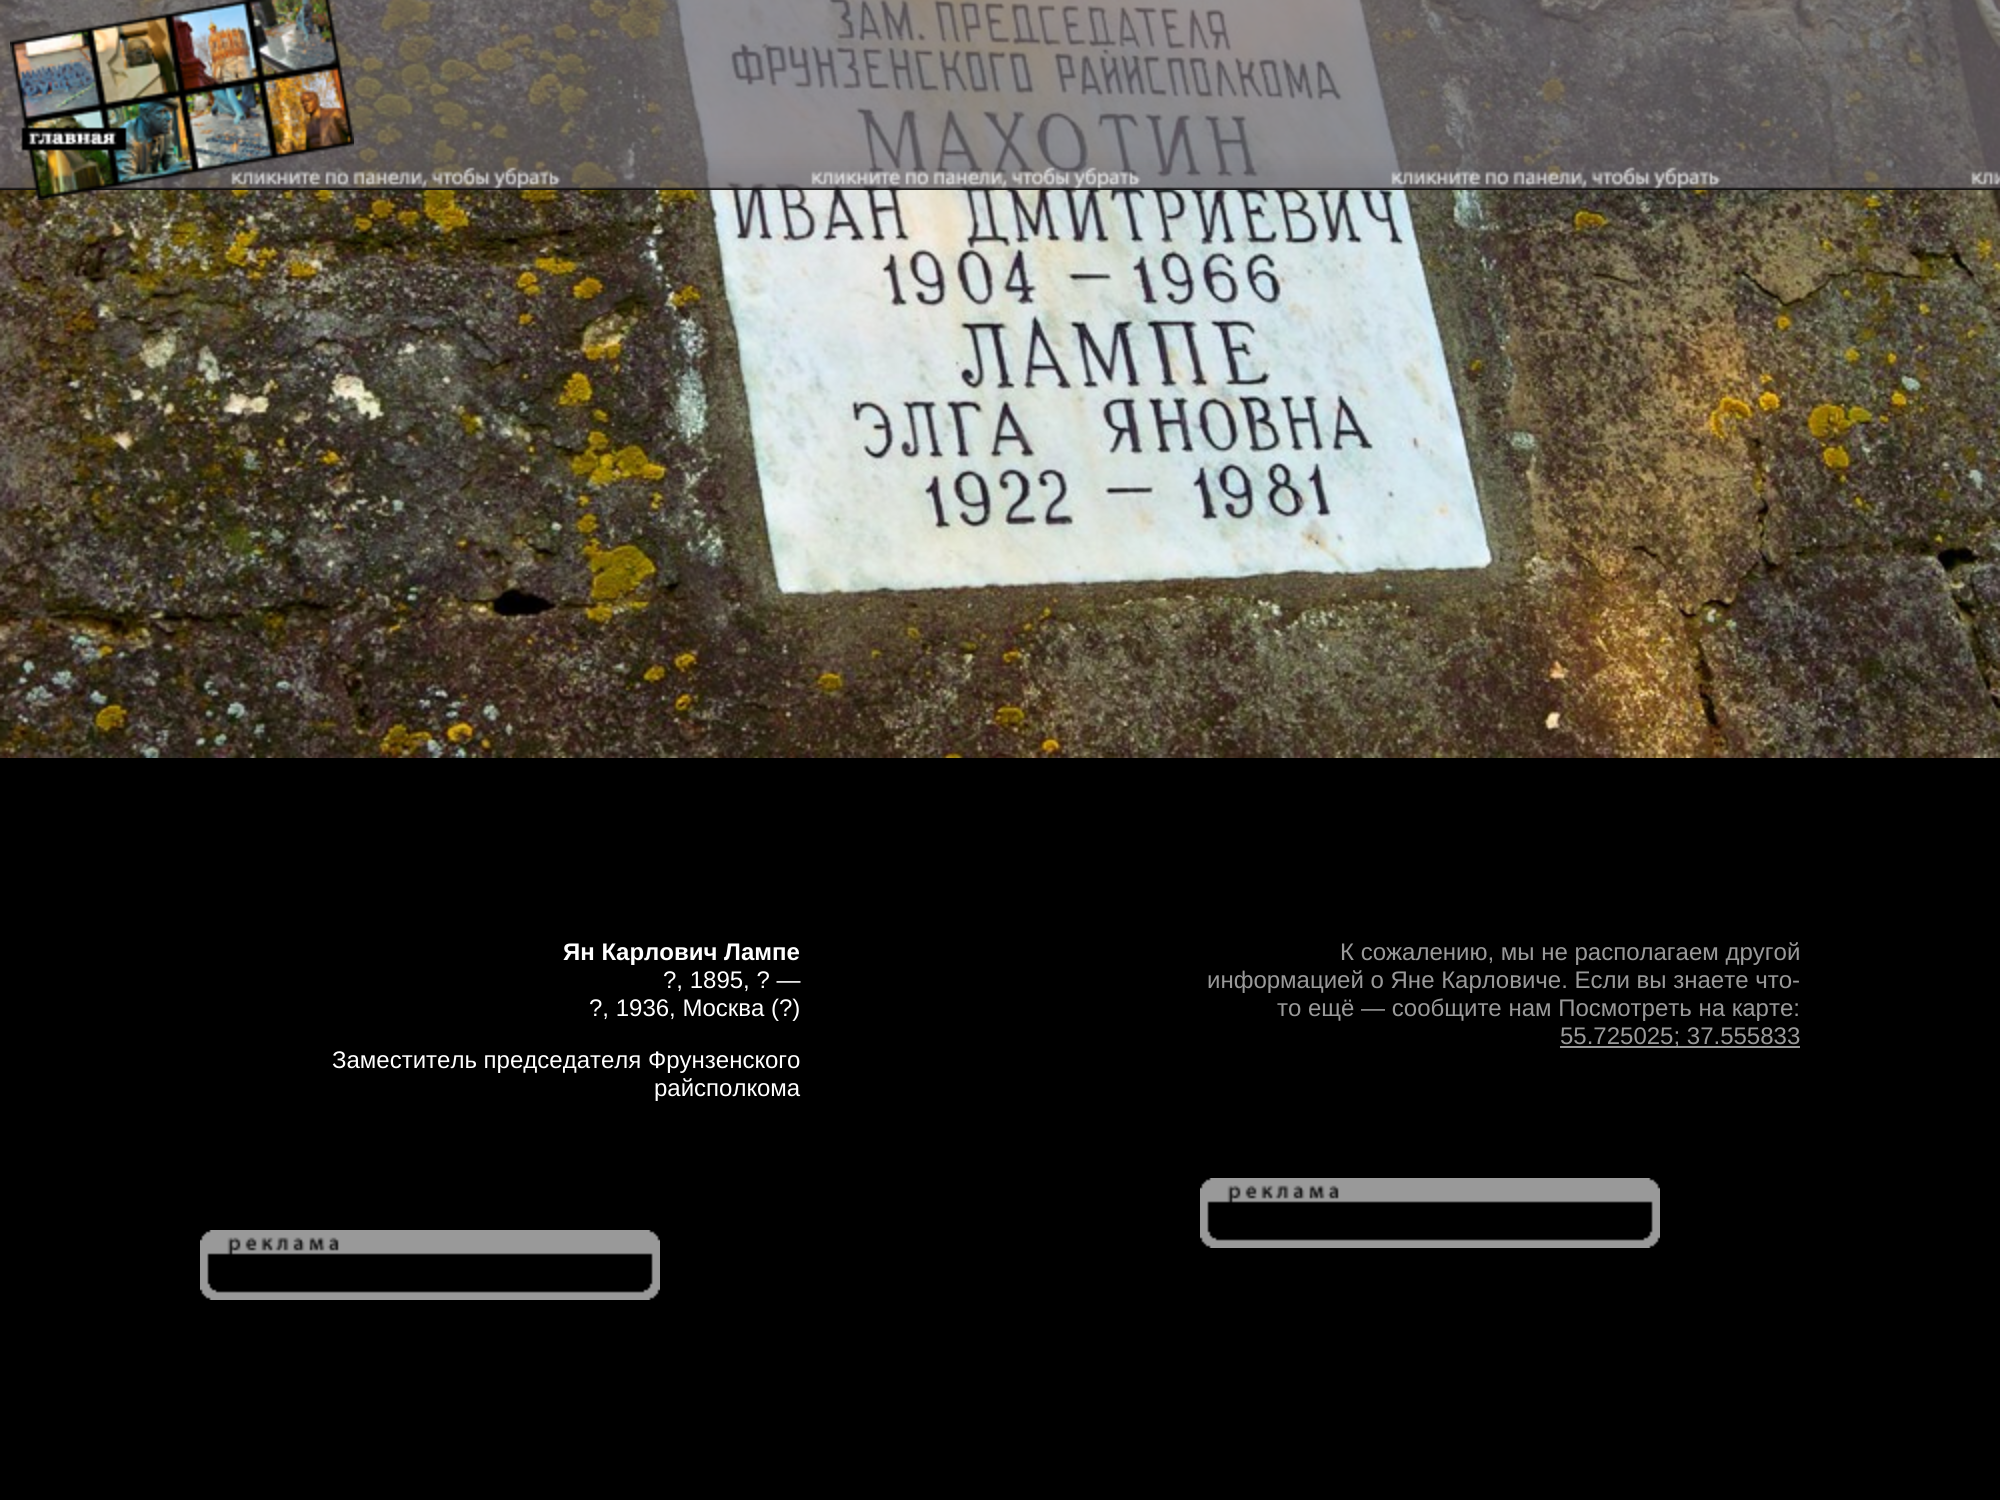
import math
import cairocffi as cairo

surface = cairo.ImageSurface(cairo.FORMAT_RGB24, 2000, 1500)
ctx = cairo.Context(surface)
options = cairo.FontOptions()
options.set_hint_metrics(cairo.HINT_METRICS_OFF)
options.set_hint_style(cairo.HINT_STYLE_NONE)
ctx.set_font_options(options)
ctx.set_miter_limit(4)


def rgb(r, g, b):
    ctx.set_source_rgb(r / 255, g / 255, b / 255)


def face(family, size, italic, bold):
    ctx.select_font_face(family, cairo.FONT_SLANT_ITALIC if italic else cairo.FONT_SLANT_NORMAL, cairo.FONT_WEIGHT_BOLD if bold else cairo.FONT_WEIGHT_NORMAL)
    ctx.set_font_size(size)


def label(x, y, s):
    ctx.move_to(x, y)
    ctx.show_text(s)


def rect(x, y, w, h):
    ctx.rectangle(x, y, w, h)
    ctx.fill()


def image(path, x, y, w, h):
    ctx.save()
    ctx.set_source_surface(cairo.ImageSurface.create_from_png(path), x, y)
    ctx.rectangle(x, y, w, h)
    ctx.fill()
    ctx.restore()


rgb(0, 0, 0)
ctx.paint()
image('image2.png', 0, 0, 2000, 758)
image('image0.png', 0, 0, 2000, 190)
image('image1.png', 10, 0, 344, 200)
face('Liberation Sans', 24, 0, 1)
rgb(255, 255, 255)
label(563, 960, 'Ян Карлович Лампе')
face('Liberation Sans', 24, 0, 0)
label(663, 988, '?, 1895, ? —')
label(589, 1016, '?, 1936, Москва (?)')
label(332, 1068, 'Заместитель председателя Фрунзенского')
label(654, 1096, 'райсполкома')
image('image3.png', 200, 1230, 460, 50)
image('image4.png', 200, 1280, 460, 20)
rgb(153, 153, 153)
label(1340, 960, 'К сожалению, мы не располагаем другой')
label(1207, 988, 'информацией о Яне Карловиче. Если вы знаете что-')
label(1277, 1016, 'то ещё — сообщите нам Посмотреть на карте:')
rect(1560, 1046, 240, 2)
label(1560, 1044, '55.725025; 37.555833')
image('image3.png', 1200, 1178, 460, 50)
image('image4.png', 1200, 1228, 460, 20)
surface.write_to_png('render.png')
